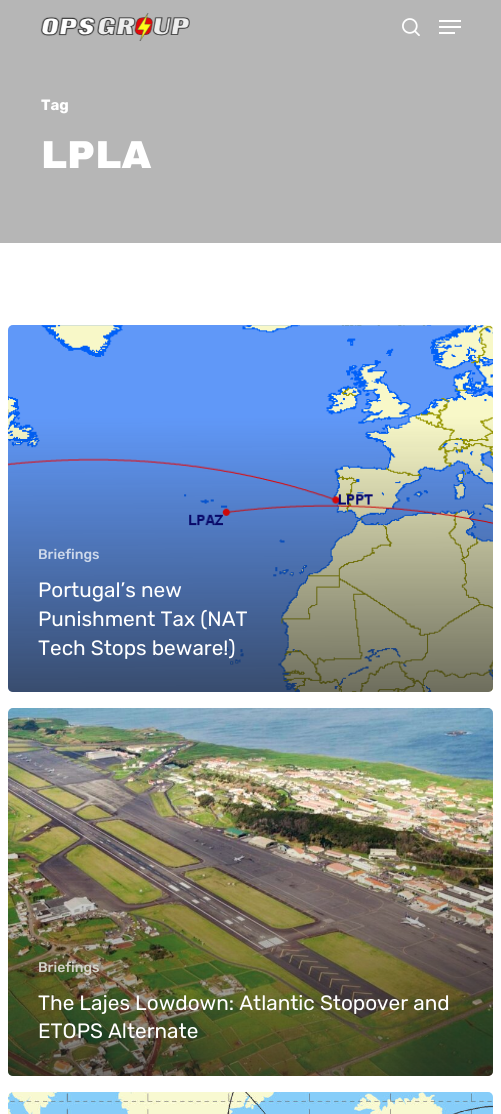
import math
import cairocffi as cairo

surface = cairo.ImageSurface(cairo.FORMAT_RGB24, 501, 1114)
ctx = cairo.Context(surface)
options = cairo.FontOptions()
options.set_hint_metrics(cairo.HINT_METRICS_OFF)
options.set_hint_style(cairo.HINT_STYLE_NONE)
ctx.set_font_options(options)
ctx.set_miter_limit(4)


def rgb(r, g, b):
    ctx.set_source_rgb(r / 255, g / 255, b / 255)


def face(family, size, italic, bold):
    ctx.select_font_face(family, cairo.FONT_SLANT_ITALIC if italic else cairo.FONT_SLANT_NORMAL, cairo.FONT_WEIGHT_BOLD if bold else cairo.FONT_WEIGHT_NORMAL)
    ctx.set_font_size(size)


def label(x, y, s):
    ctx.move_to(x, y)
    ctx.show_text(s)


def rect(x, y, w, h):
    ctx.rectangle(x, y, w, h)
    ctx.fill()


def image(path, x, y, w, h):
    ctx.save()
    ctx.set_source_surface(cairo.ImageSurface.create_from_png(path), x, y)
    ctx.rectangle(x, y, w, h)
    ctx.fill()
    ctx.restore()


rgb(255, 255, 255)
ctx.paint()
rgb(182, 182, 182)
rect(0, 0, 501, 243)
image('image0.png', 40, 13, 150, 28)
image('image1.png', 402, 18, 18, 18)
rgb(255, 255, 255)
rect(439, 20, 22, 2)
rect(439, 32, 16, 2)
rect(439, 26, 22, 2)
face('Rubik', 15, 0, 1)
label(41, 110, 'Tag')
face('Archivo Black Black', 39, 0, 0)
label(41, 168, 'LPLA')
image('image2.png', 8, 325, 485, 367)
gradient = cairo.LinearGradient(251, 417, 252, 694)
gradient.add_color_stop_rgba(0, 0.137, 0.137, 0.137, 0)
gradient.add_color_stop_rgba(1, 0.137, 0.137, 0.137, 0.65)
ctx.set_source(gradient)
ctx.new_path()
ctx.move_to(8, 417)
ctx.line_to(493, 417)
ctx.line_to(493, 687)
ctx.curve_to(493, 690, 491, 692, 488, 692)
ctx.line_to(13, 692)
ctx.curve_to(10, 692, 8, 690, 8, 687)
ctx.close_path()
ctx.fill()
face('Rubik Medium', 14, 0, 0)
rgb(205, 216, 234)
label(38, 559, 'Briefings')
face('Rubik', 20.75, 0, 0)
rgb(255, 255, 255)
label(38, 597, 'Portugal’s new')
label(38, 626, 'Punishment Tax (NAT')
label(38, 655, 'Tech Stops beware!)')
image('image3.png', 8, 708, 485, 368)
gradient = cairo.LinearGradient(251, 801, 252, 1078)
gradient.add_color_stop_rgba(0, 0.137, 0.137, 0.137, 0)
gradient.add_color_stop_rgba(1, 0.137, 0.137, 0.137, 0.65)
ctx.set_source(gradient)
ctx.new_path()
ctx.move_to(8, 801)
ctx.line_to(493, 801)
ctx.line_to(493, 1071)
ctx.curve_to(493, 1074, 491, 1076, 488, 1076)
ctx.line_to(13, 1076)
ctx.curve_to(10, 1076, 8, 1074, 8, 1071)
ctx.close_path()
ctx.fill()
face('Rubik Medium', 14, 0, 0)
rgb(212, 211, 201)
label(38, 972, 'Briefings')
face('Rubik', 20.75, 0, 0)
rgb(255, 255, 255)
label(38, 1010, 'The Lajes Lowdown: Atlantic Stopover and')
label(38, 1038, 'ETOPS Alternate')
image('image4.png', 8, 1092, 485, 22)
surface.write_to_png('render.png')
